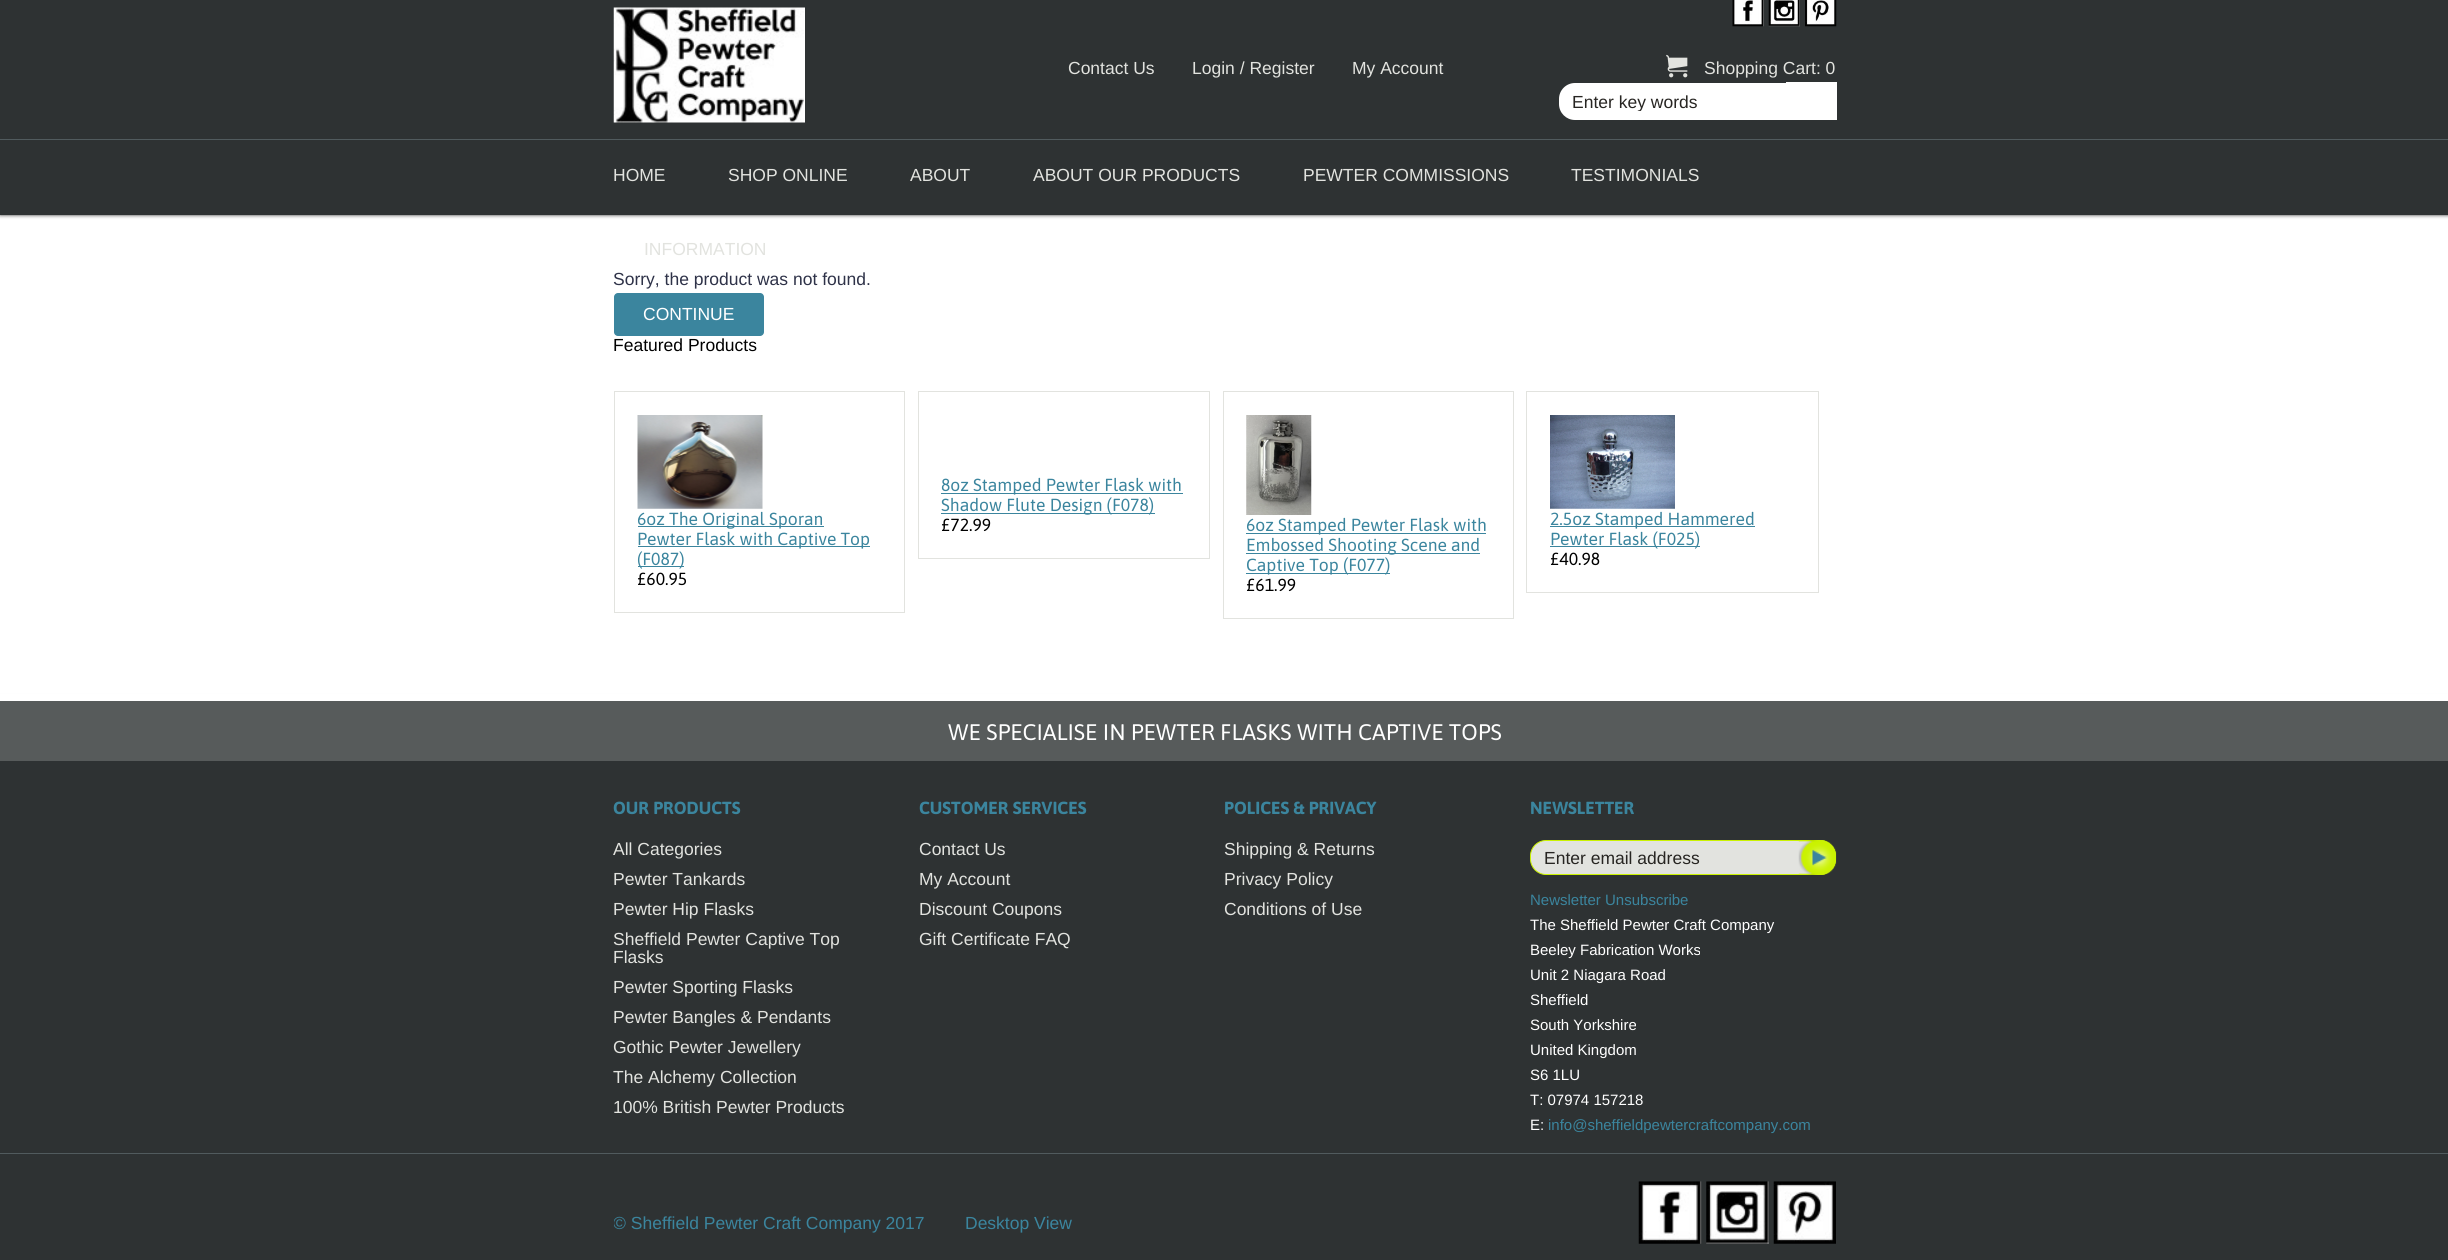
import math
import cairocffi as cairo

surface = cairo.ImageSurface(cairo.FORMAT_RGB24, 2448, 1260)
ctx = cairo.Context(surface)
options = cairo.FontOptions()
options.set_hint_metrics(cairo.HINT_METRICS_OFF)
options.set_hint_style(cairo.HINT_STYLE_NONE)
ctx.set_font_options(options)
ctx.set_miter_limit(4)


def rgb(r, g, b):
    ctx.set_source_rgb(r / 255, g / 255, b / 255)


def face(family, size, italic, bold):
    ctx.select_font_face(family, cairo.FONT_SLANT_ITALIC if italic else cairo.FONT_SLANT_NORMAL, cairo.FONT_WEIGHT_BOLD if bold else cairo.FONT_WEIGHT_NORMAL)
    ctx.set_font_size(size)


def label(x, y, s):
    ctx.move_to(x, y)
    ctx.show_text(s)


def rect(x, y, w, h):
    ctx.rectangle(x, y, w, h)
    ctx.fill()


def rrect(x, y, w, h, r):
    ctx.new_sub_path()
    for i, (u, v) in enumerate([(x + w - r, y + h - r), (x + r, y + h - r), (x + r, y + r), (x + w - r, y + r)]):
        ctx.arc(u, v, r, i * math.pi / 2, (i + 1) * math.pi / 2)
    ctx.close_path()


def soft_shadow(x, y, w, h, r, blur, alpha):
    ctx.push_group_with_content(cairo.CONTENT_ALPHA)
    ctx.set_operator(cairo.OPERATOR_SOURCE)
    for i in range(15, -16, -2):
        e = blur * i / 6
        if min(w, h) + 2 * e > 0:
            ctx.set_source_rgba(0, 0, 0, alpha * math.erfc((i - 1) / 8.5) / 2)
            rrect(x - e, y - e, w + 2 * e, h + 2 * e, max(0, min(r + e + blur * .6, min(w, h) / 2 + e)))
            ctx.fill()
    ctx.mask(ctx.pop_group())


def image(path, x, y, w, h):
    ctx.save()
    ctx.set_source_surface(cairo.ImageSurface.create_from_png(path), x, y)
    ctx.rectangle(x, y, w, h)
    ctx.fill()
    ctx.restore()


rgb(255, 255, 255)
ctx.paint()
rgb(51, 51, 51)
soft_shadow(0, 140, 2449, 75, 0, 2, 1)
rgb(46, 50, 51)
rect(0, 0, 2448, 139)
rgb(81, 91, 94)
rect(0, 139, 2448, 1)
image('image0.png', 613, 7, 192, 116)
face('Liberation Sans', 17.5, 0, 0)
rgb(226, 227, 223)
label(1068, 74, 'Contact Us')
label(1192, 74, 'Login / Register')
label(1352, 74, 'My Account')
image('image1.png', 1732, 0, 32, 27)
image('image2.png', 1768, 0, 32, 27)
image('image3.png', 1805, 0, 32, 27)
image('image4.png', 1666, 54, 22, 24)
label(1704, 74, 'Shopping Cart: 0')
rgb(255, 255, 255)
rrect(1559, 83, 277, 37, 16)
ctx.fill()
ctx.save()
ctx.rectangle(1573, 91, 215, 20)
ctx.clip()
rgb(39, 37, 34)
label(1572, 108, 'Enter key words')
ctx.restore()
rect(1786, 82, 51, 38)
rgb(46, 50, 51)
rect(0, 140, 2448, 75)
rgb(226, 227, 223)
label(613, 181, 'HOME')
label(728, 181, 'SHOP ONLINE')
label(910, 181, 'ABOUT')
label(1033, 181, 'ABOUT OUR PRODUCTS')
label(1303, 181, 'PEWTER COMMISSIONS')
label(1571, 181, 'TESTIMONIALS')
label(644, 255, 'INFORMATION')
ctx.save()
ctx.set_fill_rule(cairo.FILL_RULE_EVEN_ODD)
ctx.new_path()
ctx.move_to(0, 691)
ctx.line_to(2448, 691)
ctx.line_to(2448, 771)
ctx.line_to(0, 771)
ctx.close_path()
ctx.move_to(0, 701)
ctx.line_to(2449, 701)
ctx.line_to(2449, 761)
ctx.line_to(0, 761)
ctx.close_path()
ctx.clip()
rgb(51, 51, 51)
soft_shadow(0, 701, 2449, 60, 0, 3, 1)
ctx.restore()
rgb(255, 255, 255)
rect(0, 694, 2448, 7)
rgb(46, 50, 72)
label(613, 285, 'Sorry, the product was not found.')
rgb(59, 133, 158)
rrect(614, 293, 150, 43, 4)
ctx.fill()
rgb(255, 255, 255)
label(643, 320, 'CONTINUE')
rgb(0, 0, 0)
label(613, 351, 'Featured Products')
ctx.rectangle(918.5, 391.5, 291, 167)
rgb(226, 227, 223)
ctx.set_line_width(1)
ctx.stroke()
rgb(59, 133, 158)
rect(941, 493, 242, 1)
face('Asap', 17.5, 0, 0)
label(941, 491, '8oz Stamped Pewter Flask with')
rect(941, 513, 214, 1)
label(941, 511, 'Shadow Flute Design (F078)')
rgb(0, 0, 0)
label(941, 531, '£72.99')
ctx.rectangle(614.5, 391.5, 290, 221)
rgb(226, 227, 223)
ctx.stroke()
image('image5.png', 637, 415, 126, 94)
rgb(59, 133, 158)
rect(638, 526, 186, 1)
label(637, 525, '6oz The Original Sporan')
rect(638, 546, 232, 1)
label(637, 545, 'Pewter Flask with Captive Top')
rect(638, 566, 46, 1)
label(637, 565, '(F087)')
rgb(0, 0, 0)
label(637, 585, '£60.95')
ctx.rectangle(1223.5, 391.5, 290, 227)
rgb(226, 227, 223)
ctx.stroke()
image('image6.png', 1246, 415, 66, 100)
rgb(59, 133, 158)
rect(1246, 533, 240, 1)
label(1246, 531, '6oz Stamped Pewter Flask with')
rect(1246, 553, 234, 1)
label(1246, 551, 'Embossed Shooting Scene and')
rect(1246, 573, 144, 1)
label(1246, 571, 'Captive Top (F077)')
rgb(0, 0, 0)
label(1246, 591, '£61.99')
ctx.rectangle(1526.5, 391.5, 292, 201)
rgb(226, 227, 223)
ctx.stroke()
image('image7.png', 1550, 415, 125, 94)
rgb(59, 133, 158)
rect(1550, 526, 205, 1)
label(1550, 525, '2.5oz Stamped Hammered')
rect(1550, 546, 150, 1)
label(1550, 545, 'Pewter Flask (F025)')
rgb(0, 0, 0)
label(1550, 565, '£40.98')
ctx.set_source_rgba(0.18, 0.196, 0.2, 0.8)
rect(0, 701, 2448, 60)
face('Asap', 22.5, 0, 0)
rgb(255, 255, 255)
label(948, 740, 'WE SPECIALISE IN PEWTER FLASKS WITH CAPTIVE TOPS')
rgb(46, 50, 51)
rect(0, 761, 2448, 392)
rgb(81, 91, 94)
rect(0, 1153, 2448, 1)
face('Asap', 17.5, 0, 1)
rgb(59, 133, 158)
label(613, 814, 'OUR PRODUCTS')
face('Liberation Sans', 17.5, 0, 0)
rgb(226, 227, 223)
label(613, 855, 'All Categories')
label(613, 885, 'Pewter Tankards')
label(613, 915, 'Pewter Hip Flasks')
label(613, 945, 'Sheffield Pewter Captive Top')
label(613, 963, 'Flasks')
label(613, 993, 'Pewter Sporting Flasks')
label(613, 1023, 'Pewter Bangles & Pendants')
label(613, 1053, 'Gothic Pewter Jewellery')
label(613, 1083, 'The Alchemy Collection')
label(613, 1113, '100% British Pewter Products')
face('Asap', 17.5, 0, 1)
rgb(59, 133, 158)
label(919, 814, 'CUSTOMER SERVICES')
face('Liberation Sans', 17.5, 0, 0)
rgb(226, 227, 223)
label(919, 855, 'Contact Us')
label(919, 885, 'My Account')
label(919, 915, 'Discount Coupons')
label(919, 945, 'Gift Certificate FAQ')
face('Asap', 17.5, 0, 1)
rgb(59, 133, 158)
label(1224, 814, 'POLICES & PRIVACY')
face('Liberation Sans', 17.5, 0, 0)
rgb(226, 227, 223)
label(1224, 855, 'Shipping & Returns')
label(1224, 885, 'Privacy Policy')
label(1224, 915, 'Conditions of Use')
face('Asap', 17.5, 0, 1)
rgb(59, 133, 158)
label(1530, 814, 'NEWSLETTER')
rgb(226, 227, 223)
rrect(1530.5, 840.5, 305, 34, 15.5)
ctx.fill_preserve()
rgb(202, 242, 0)
ctx.stroke()
face('Liberation Sans', 17.5, 0, 0)
rgb(39, 37, 34)
label(1544, 864, 'Enter email address')
image('image8.png', 1798, 840, 39, 35)
face('Liberation Sans', 15, 0, 0)
rgb(59, 133, 158)
label(1530, 905, 'Newsletter Unsubscribe')
rgb(255, 255, 255)
label(1530, 930, 'The Sheffield Pewter Craft Company')
label(1530, 955, 'Beeley Fabrication Works')
label(1530, 980, 'Unit 2 Niagara Road')
label(1530, 1005, 'Sheffield')
label(1530, 1030, 'South Yorkshire')
label(1530, 1055, 'United Kingdom')
label(1530, 1080, 'S6 1LU')
label(1530, 1105, 'T: 07974 157218')
label(1530, 1130, 'E:')
rgb(59, 133, 158)
label(1548, 1130, 'info@sheffieldpewtercraftcompany.com')
rgb(46, 50, 51)
rect(0, 1154, 2448, 106)
ctx.save()
ctx.rectangle(614, 1181, 1222, 65)
ctx.clip()
face('Liberation Sans', 17.5, 0, 0)
rgb(59, 133, 158)
label(613, 1229, '© Sheffield Pewter Craft Company 2017')
ctx.restore()
face('Liberation Sans', 17.5, 0, 0)
rgb(59, 133, 158)
label(965, 1229, 'Desktop View')
image('image9.png', 1638, 1181, 64, 63)
image('image10.png', 1706, 1181, 63, 63)
image('image11.png', 1773, 1181, 63, 63)
surface.write_to_png('render.png')
